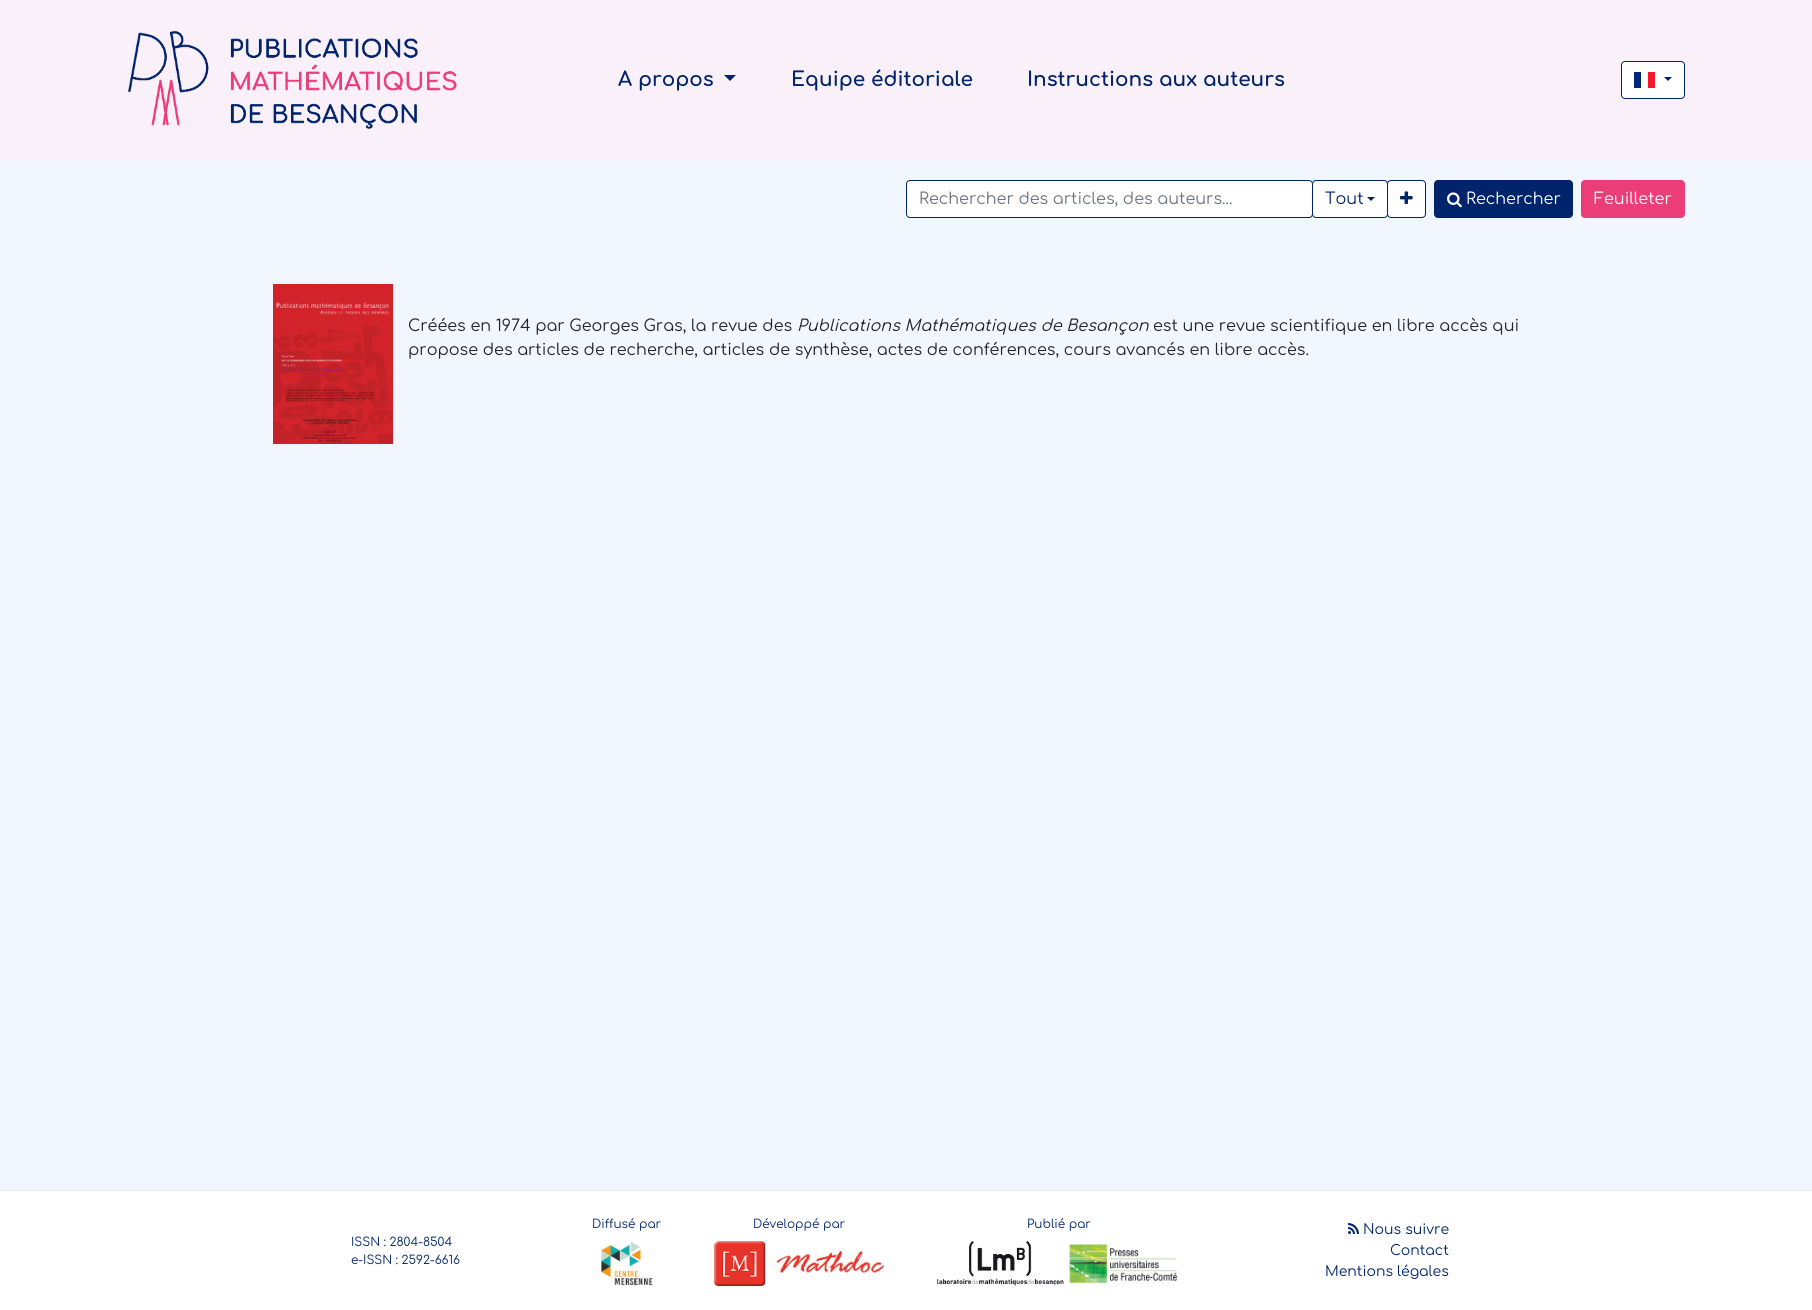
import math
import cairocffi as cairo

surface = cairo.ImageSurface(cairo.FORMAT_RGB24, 1812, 1310)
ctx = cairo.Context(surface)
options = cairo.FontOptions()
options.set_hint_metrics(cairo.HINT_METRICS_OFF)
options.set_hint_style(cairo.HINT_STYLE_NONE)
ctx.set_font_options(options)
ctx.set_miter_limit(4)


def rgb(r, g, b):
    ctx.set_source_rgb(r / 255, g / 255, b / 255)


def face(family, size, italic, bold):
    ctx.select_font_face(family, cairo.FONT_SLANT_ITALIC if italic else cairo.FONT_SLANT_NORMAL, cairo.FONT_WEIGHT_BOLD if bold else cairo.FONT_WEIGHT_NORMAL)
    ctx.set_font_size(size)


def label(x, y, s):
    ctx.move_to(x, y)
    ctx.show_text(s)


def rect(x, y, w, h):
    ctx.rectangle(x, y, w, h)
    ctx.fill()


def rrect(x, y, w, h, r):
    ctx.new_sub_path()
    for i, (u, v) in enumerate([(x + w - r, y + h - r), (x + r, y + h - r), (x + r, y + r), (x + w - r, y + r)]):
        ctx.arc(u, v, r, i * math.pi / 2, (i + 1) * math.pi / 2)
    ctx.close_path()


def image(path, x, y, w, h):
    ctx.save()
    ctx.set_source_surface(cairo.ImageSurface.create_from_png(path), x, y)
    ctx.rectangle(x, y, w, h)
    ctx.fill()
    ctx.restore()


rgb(242, 246, 255)
ctx.paint()
rgb(250, 240, 249)
rect(0, 0, 1812, 160)
image('image0.png', 128, 30, 329, 99)
face('Comfortaa', 20, 0, 1)
rgb(0, 36, 107)
label(618, 86, 'A propos')
ctx.new_path()
ctx.move_to(724, 75)
ctx.line_to(736, 75)
ctx.line_to(730, 81)
ctx.close_path()
ctx.fill()
label(791, 86, 'Equipe éditoriale')
label(1027, 86, 'Instructions aux auteurs')
rgb(255, 255, 255)
rrect(1621.5, 61.5, 63, 37, 3.5)
ctx.fill_preserve()
rgb(0, 36, 107)
ctx.set_line_width(1)
ctx.stroke()
rgb(0, 38, 127)
rect(1634, 72, 7, 16)
rgb(243, 24, 48)
rect(1648, 72, 7, 16)
rgb(0, 36, 107)
ctx.new_path()
ctx.move_to(1664, 77)
ctx.line_to(1672, 77)
ctx.line_to(1668, 81)
ctx.close_path()
ctx.fill()
rgb(255, 255, 255)
rrect(906.5, 180.5, 406, 37, 3.5)
ctx.fill_preserve()
rgb(0, 36, 107)
ctx.stroke()
face('Comfortaa', 16, 0, 0)
rgb(108, 117, 125)
label(919, 204, 'Rechercher des articles, des auteurs...')
rgb(255, 255, 255)
rrect(1312.5, 180.5, 75, 37, 3.5)
ctx.fill_preserve()
rgb(0, 36, 107)
ctx.stroke()
label(1325, 204, 'Tout')
ctx.new_path()
ctx.move_to(1367, 197)
ctx.line_to(1375, 197)
ctx.line_to(1371, 201)
ctx.close_path()
ctx.fill()
rgb(255, 255, 255)
rrect(1387.5, 180.5, 38, 37, 3.5)
ctx.fill_preserve()
rgb(0, 36, 107)
ctx.stroke()
image('image1.png', 1400, 191, 13, 13)
rrect(1434, 180, 139, 38, 4)
ctx.fill()
image('image2.png', 1447, 192, 15, 16)
rgb(255, 255, 255)
label(1466, 204, 'Rechercher')
rgb(235, 62, 121)
rrect(1581, 180, 104, 38, 4)
ctx.fill()
rgb(255, 255, 255)
label(1594, 204, 'Feuilleter')
image('image3.png', 273, 284, 120, 160)
rgb(33, 37, 41)
label(408, 331, 'Créées en 1974 par Georges Gras, la revue des')
face('Comfortaa', 16, 1, 0)
label(797, 331, 'Publications Mathématiques de Besançon')
face('Comfortaa', 16, 0, 0)
label(1153, 331, 'est une revue scientifique en libre accès qui')
label(408, 355, 'propose des articles de recherche, articles de synthèse, actes de conférences, cours avancés en libre accès.')
rgb(255, 255, 255)
rect(0, 1191, 1812, 119)
rgb(231, 231, 231)
rect(0, 1190, 1812, 1)
face('Comfortaa', 12, 0, 0)
rgb(0, 36, 107)
label(351, 1246, 'ISSN : 2804-8504')
label(351, 1264, 'e-ISSN : 2592-6616')
label(592, 1228, 'Diffusé par')
image('image4.png', 601, 1241, 52, 45)
label(753, 1228, 'Développé par')
image('image5.png', 714, 1241, 170, 45)
label(1027, 1228, 'Publié par')
image('image6.png', 937, 1241, 127, 45)
image('image7.png', 1069, 1243, 109, 41)
image('image8.png', 1348, 1223, 11, 11)
face('Comfortaa', 14, 0, 0)
label(1363, 1234, 'Nous suivre')
label(1390, 1255, 'Contact')
label(1325, 1276, 'Mentions légales')
surface.write_to_png('render.png')
